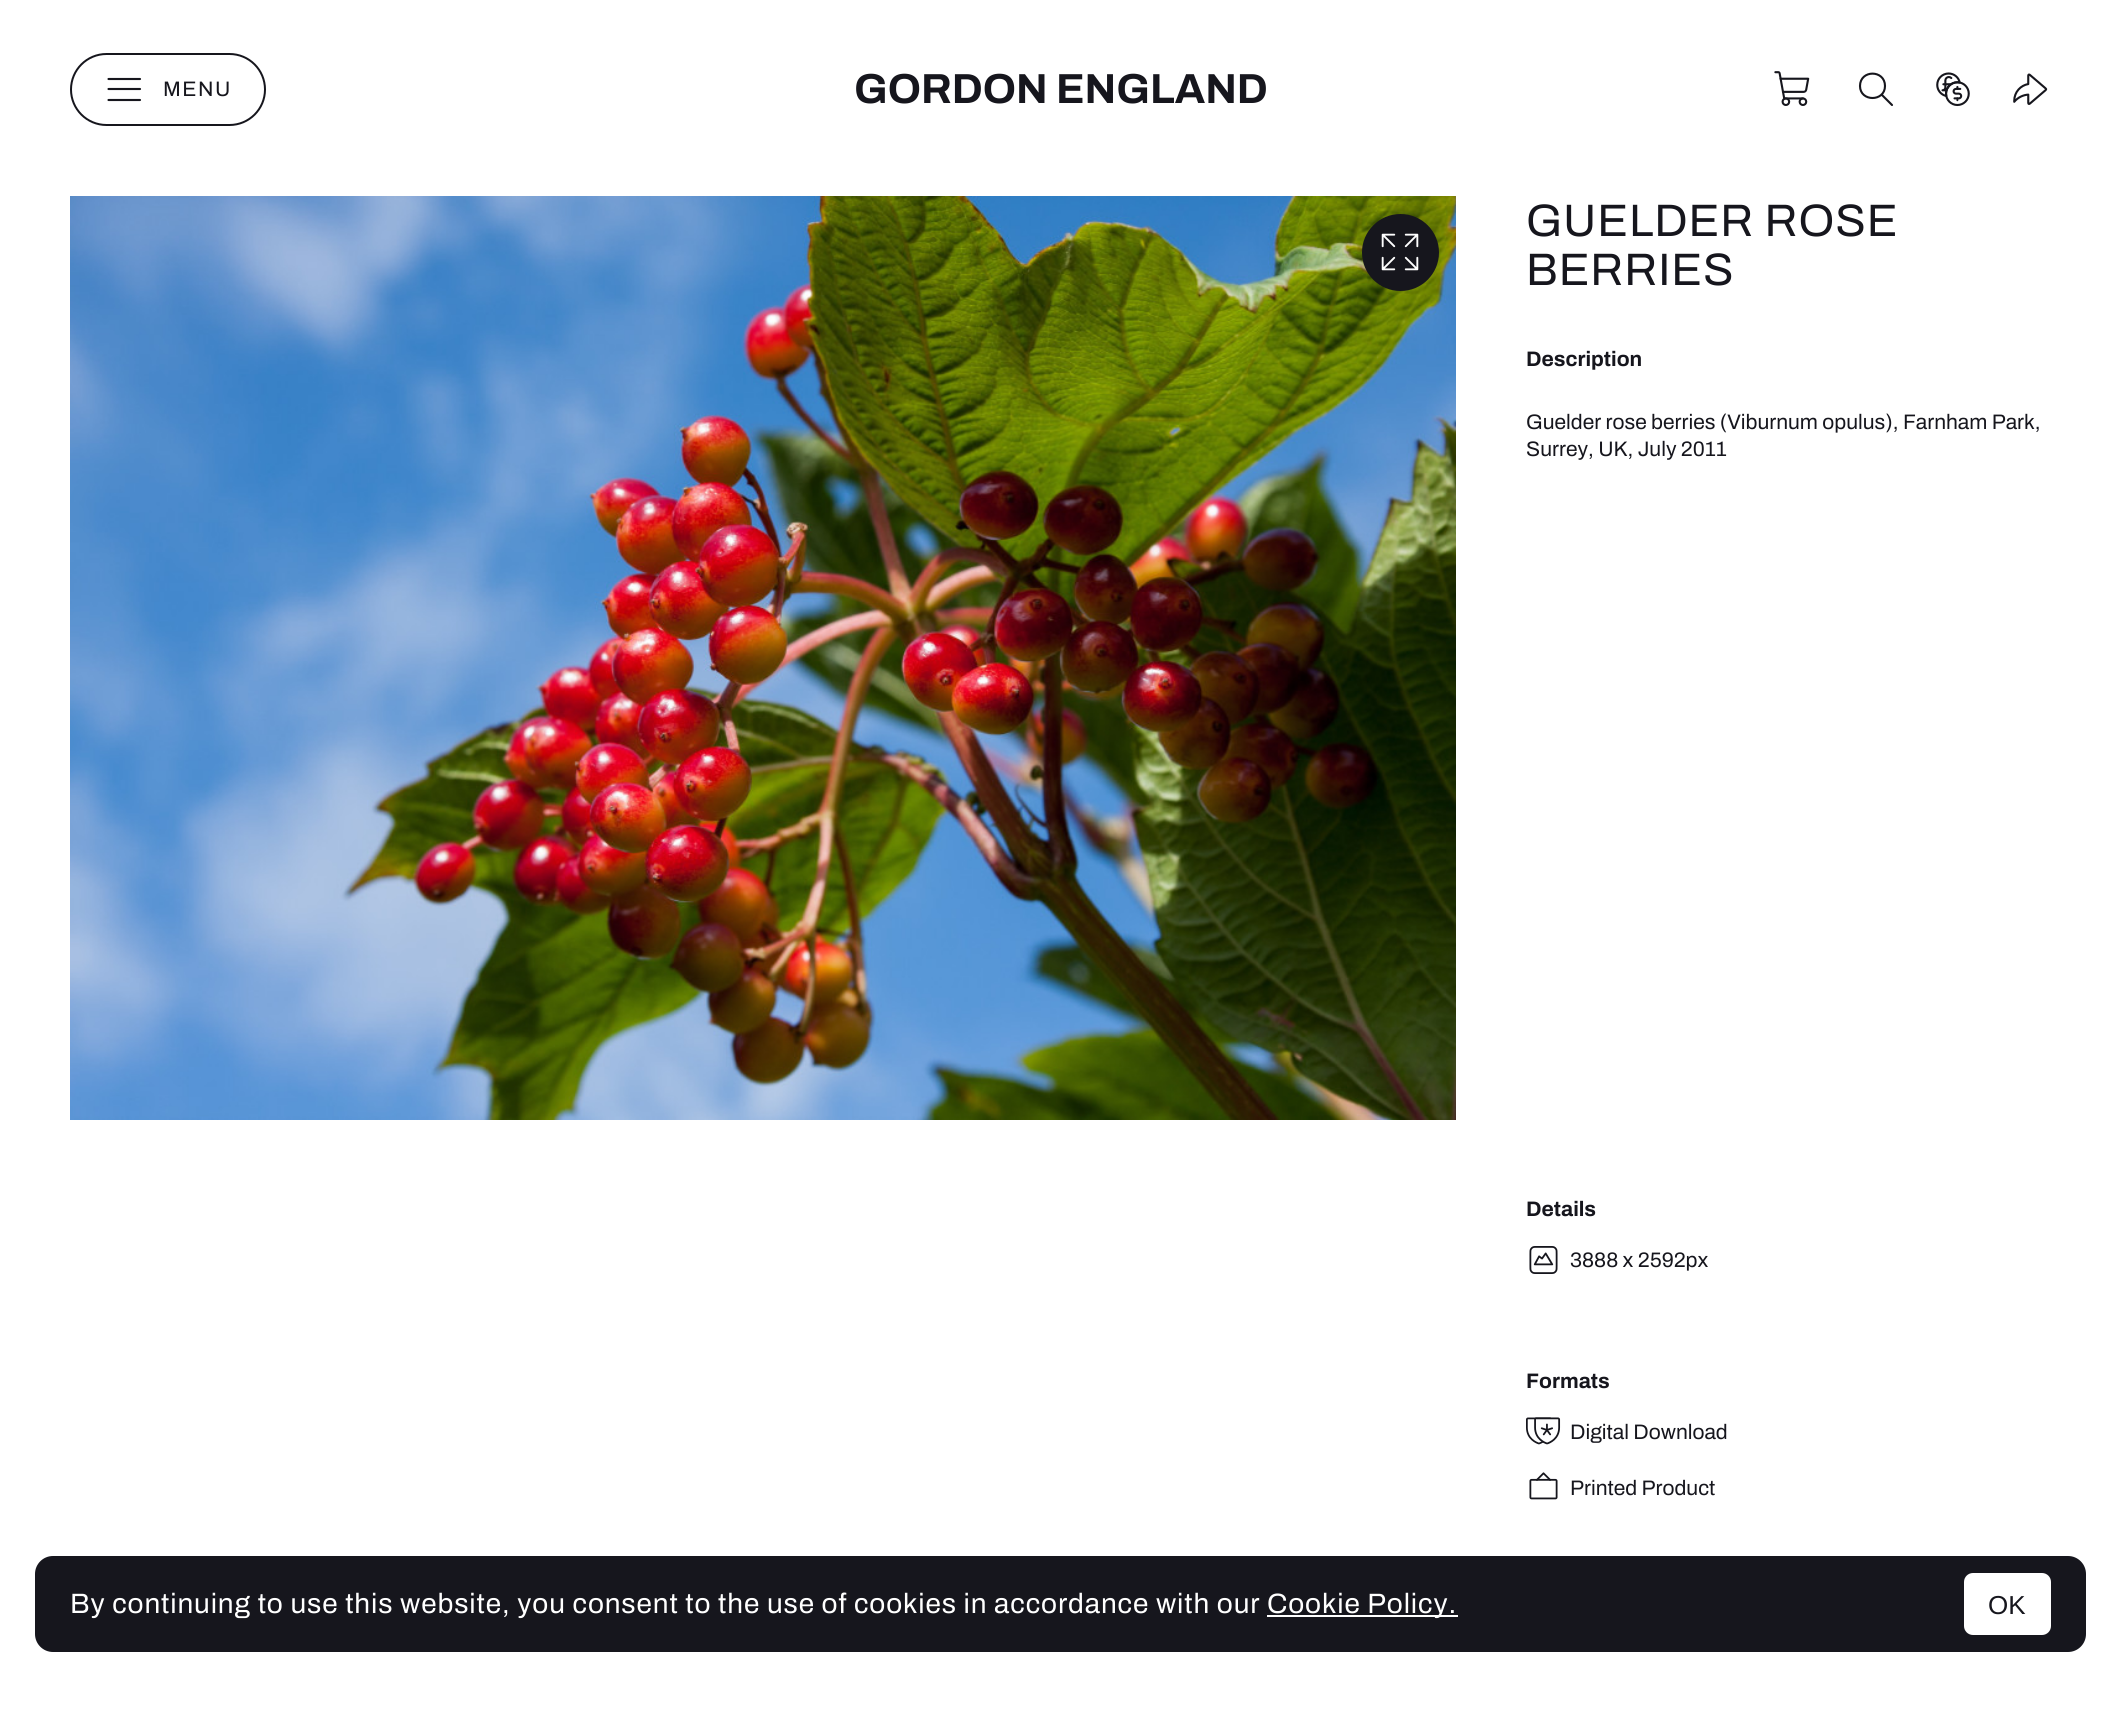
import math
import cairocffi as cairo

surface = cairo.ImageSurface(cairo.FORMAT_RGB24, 2121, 1713)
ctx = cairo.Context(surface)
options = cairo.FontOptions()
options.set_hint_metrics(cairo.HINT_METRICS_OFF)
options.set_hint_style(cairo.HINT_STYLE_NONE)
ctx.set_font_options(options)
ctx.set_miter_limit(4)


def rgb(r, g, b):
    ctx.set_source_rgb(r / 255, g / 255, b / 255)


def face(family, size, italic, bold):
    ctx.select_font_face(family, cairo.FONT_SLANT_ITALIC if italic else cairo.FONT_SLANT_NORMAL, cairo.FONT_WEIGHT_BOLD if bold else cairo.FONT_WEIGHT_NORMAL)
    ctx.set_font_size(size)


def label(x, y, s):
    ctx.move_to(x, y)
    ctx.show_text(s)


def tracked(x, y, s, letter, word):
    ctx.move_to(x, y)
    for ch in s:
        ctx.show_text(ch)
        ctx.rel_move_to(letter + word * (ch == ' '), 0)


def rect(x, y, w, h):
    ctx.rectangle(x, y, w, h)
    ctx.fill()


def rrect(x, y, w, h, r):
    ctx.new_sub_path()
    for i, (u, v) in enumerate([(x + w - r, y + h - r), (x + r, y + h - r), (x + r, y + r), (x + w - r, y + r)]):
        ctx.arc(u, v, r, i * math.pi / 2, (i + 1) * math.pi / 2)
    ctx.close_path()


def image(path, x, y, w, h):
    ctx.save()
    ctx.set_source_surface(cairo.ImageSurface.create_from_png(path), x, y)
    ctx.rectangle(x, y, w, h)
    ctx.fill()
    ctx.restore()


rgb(255, 255, 255)
ctx.paint()
rrect(71, 54, 194, 71, 35.5)
rgb(22, 22, 29)
ctx.stroke()
ctx.new_path()
ctx.move_to(108.5, 89)
ctx.line_to(140, 89)
ctx.move_to(108.5, 79)
ctx.line_to(140, 79)
ctx.move_to(108.5, 100)
ctx.line_to(140, 100)
ctx.set_line_width(2.1)
ctx.set_line_cap(cairo.LINE_CAP_ROUND)
ctx.set_line_join(cairo.LINE_JOIN_ROUND)
ctx.stroke()
face('Archivo', 21, 0, 0)
tracked(163, 96, 'MENU', 1.5, 0)
face('Archivo', 42, 0, 1)
label(854, 103, 'GORDON ENGLAND')
image('image0.png', 1774, 71, 36, 35)
ctx.new_path()
ctx.move_to(1892, 105)
ctx.line_to(1881.5, 94.5)
ctx.move_to(1885, 86)
ctx.curve_to(1885, 102, 1860, 102, 1860, 86)
ctx.curve_to(1860, 69.5, 1885, 69.5, 1885, 86)
ctx.close_path()
ctx.stroke()
image('image1.png', 1936, 72, 34, 35)
image('image2.png', 2013, 73, 35, 32)
image('image3.png', 70, 196, 1386, 924)
ctx.arc(1400.5, 252.5, 38.5, 0, 2 * math.pi)
ctx.fill()
image('image4.png', 1381, 233, 38, 38)
face('Archivo', 45.5, 0, 0)
tracked(1526, 236, 'GUELDER ROSE', 0.88, 0)
tracked(1526, 285, 'BERRIES', 0.88, 0)
face('Archivo', 21, 0, 1)
label(1526, 366, 'Description')
face('Archivo', 21, 0, 0)
label(1526, 429, 'Guelder rose berries (Viburnum opulus), Farnham Park,')
label(1526, 456, 'Surrey, UK, July 2011')
face('Archivo', 21, 0, 1)
label(1526, 1216, 'Details')
image('image5.png', 1529, 1246, 29, 28)
face('Archivo', 21, 0, 0)
label(1570, 1267, '3888 x 2592px')
face('Archivo', 21, 0, 1)
label(1526, 1388, 'Formats')
image('image6.png', 1526, 1417, 35, 28)
face('Archivo', 21, 0, 0)
label(1570, 1439, 'Digital Download')
image('image7.png', 1529, 1472, 29, 28)
label(1570, 1495, 'Printed Product')
rrect(35, 1556, 2051, 96, 18)
ctx.fill()
face('Archivo', 28, 0, 0)
rgb(255, 255, 255)
tracked(70, 1613, 'By continuing to use this website, you consent to the use of cookies in accordance with our', 0.88, 0)
rect(1267, 1615, 191, 2)
tracked(1267, 1613, 'Cookie Policy.', 0.88, 0)
rrect(1964, 1573, 87, 62, 9)
ctx.fill()
face('Liberation Sans', 26, 0, 0)
rgb(22, 22, 29)
label(1988, 1614, 'OK')
surface.write_to_png('render.png')
